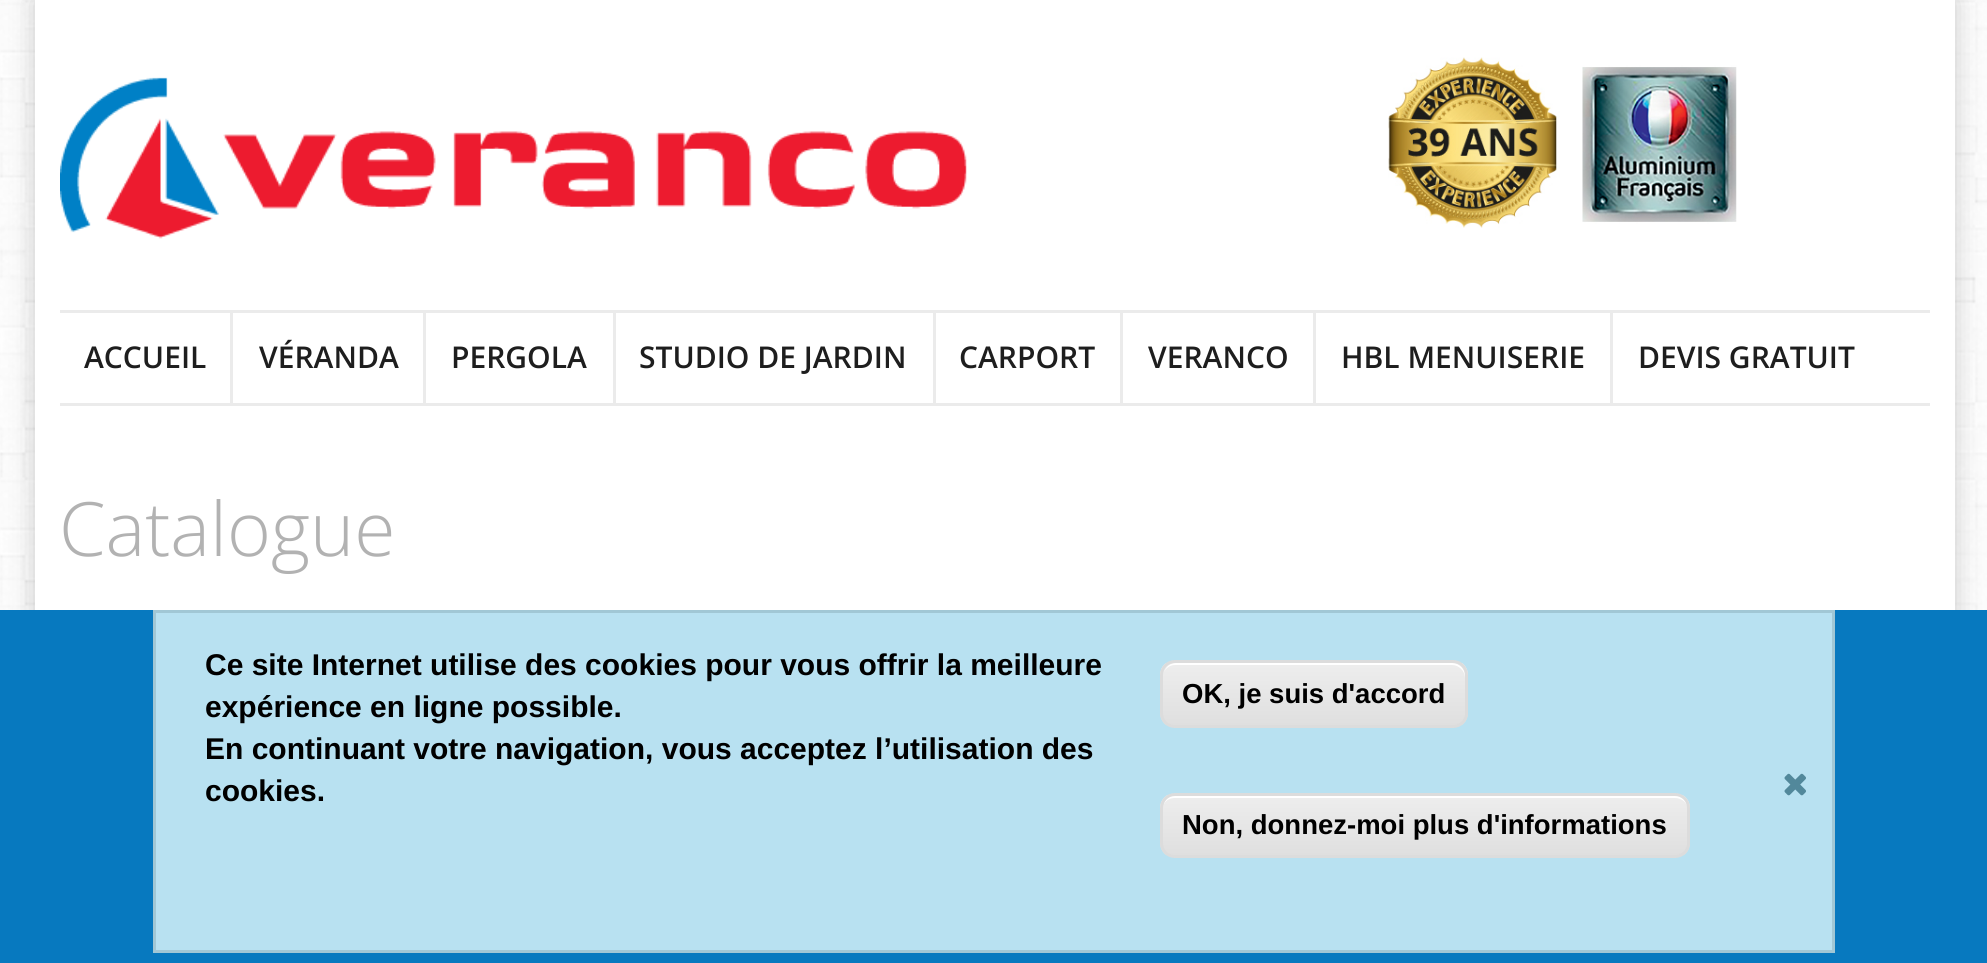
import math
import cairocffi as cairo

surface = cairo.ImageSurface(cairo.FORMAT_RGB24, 1987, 963)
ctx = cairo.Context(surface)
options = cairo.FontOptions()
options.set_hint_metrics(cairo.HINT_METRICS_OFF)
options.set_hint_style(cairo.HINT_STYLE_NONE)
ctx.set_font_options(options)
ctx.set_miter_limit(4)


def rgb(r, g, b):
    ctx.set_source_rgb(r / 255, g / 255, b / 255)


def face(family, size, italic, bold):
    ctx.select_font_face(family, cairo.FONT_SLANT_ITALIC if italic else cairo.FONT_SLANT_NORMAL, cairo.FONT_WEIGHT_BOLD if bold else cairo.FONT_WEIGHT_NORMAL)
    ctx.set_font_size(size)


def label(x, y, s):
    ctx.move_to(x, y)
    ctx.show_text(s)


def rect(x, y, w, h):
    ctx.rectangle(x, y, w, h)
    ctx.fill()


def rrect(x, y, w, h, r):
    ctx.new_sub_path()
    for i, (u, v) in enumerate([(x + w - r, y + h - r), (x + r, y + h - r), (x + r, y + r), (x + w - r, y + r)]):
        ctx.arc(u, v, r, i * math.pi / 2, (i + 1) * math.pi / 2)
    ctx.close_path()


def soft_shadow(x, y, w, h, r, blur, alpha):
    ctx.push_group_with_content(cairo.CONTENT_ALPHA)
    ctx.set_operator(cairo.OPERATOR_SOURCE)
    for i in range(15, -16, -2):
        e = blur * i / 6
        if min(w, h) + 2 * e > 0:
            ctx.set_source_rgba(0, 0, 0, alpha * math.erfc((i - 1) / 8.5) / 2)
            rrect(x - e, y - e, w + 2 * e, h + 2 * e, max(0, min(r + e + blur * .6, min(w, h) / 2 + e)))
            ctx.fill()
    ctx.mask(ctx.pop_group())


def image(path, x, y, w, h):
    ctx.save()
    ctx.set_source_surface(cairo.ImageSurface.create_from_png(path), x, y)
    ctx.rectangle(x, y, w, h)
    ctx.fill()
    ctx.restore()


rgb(255, 255, 255)
ctx.paint()
image('image0.png', 0, 0, 1987, 610)
rgb(0, 0, 0)
soft_shadow(35, 0, 1920, 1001, 0, 12.5, 0.2)
rgb(255, 255, 255)
rect(35, 0, 1920, 610)
image('image1.png', 60, 77, 907, 162)
image('image2.png', 1388, 57, 349, 171)
rgb(235, 235, 235)
rect(60, 310, 1870, 3)
rect(60, 403, 1870, 3)
face('Open Sans SemiBold', 30, 0, 0)
rgb(30, 30, 30)
label(84, 368, 'ACCUEIL')
rgb(235, 235, 235)
rect(230, 313, 3, 90)
rgb(30, 30, 30)
label(259, 368, 'VÉRANDA')
rgb(235, 235, 235)
rect(423, 313, 3, 90)
rgb(30, 30, 30)
label(451, 368, 'PERGOLA')
rgb(235, 235, 235)
rect(613, 313, 3, 90)
rgb(30, 30, 30)
label(639, 368, 'STUDIO DE JARDIN')
rgb(235, 235, 235)
rect(933, 313, 3, 90)
rgb(30, 30, 30)
label(959, 368, 'CARPORT')
rgb(235, 235, 235)
rect(1120, 313, 3, 90)
rgb(30, 30, 30)
label(1148, 368, 'VERANCO')
rgb(235, 235, 235)
rect(1313, 313, 3, 90)
rgb(30, 30, 30)
label(1341, 368, 'HBL MENUISERIE')
rgb(235, 235, 235)
rect(1610, 313, 3, 90)
rgb(30, 30, 30)
label(1638, 368, 'DEVIS GRATUIT')
face('Open Sans Light', 75, 0, 0)
rgb(178, 178, 178)
label(59, 556, 'Catalogue')
rgb(7, 121, 191)
rect(0, 610, 1987, 353)
rgb(184, 225, 241)
ctx.rectangle(154.5, 611.5, 1679, 340)
ctx.fill_preserve()
rgb(161, 199, 213)
ctx.set_line_width(3)
ctx.stroke()
face('Liberation Sans', 30, 0, 1)
rgb(0, 0, 0)
label(205, 675, 'Ce site Internet utilise des cookies pour vous offrir la meilleure')
label(205, 717, 'expérience en ligne possible.')
label(205, 759, 'En continuant votre navigation, vous acceptez l’utilisation des')
label(205, 801, 'cookies.')
ctx.save()
rrect(1160, 660, 308, 68, 15)
ctx.clip()
gradient = cairo.LinearGradient(1314, 663, 1314, 725)
gradient.add_color_stop_rgba(0.05, 0.929, 0.929, 0.929, 1)
gradient.add_color_stop_rgba(1, 0.875, 0.875, 0.875, 1)
ctx.set_source(gradient)
rect(1160, 663, 308, 62)
ctx.restore()
rgb(255, 255, 255)
ctx.new_path()
ctx.move_to(1175, 665)
ctx.line_to(1452, 665)
ctx.curve_to(1459, 665, 1465, 671, 1465, 678)
ctx.line_to(1465, 676)
ctx.curve_to(1465, 669, 1459, 663, 1452, 663)
ctx.line_to(1176, 663)
ctx.curve_to(1170, 663, 1166, 667, 1164, 672)
ctx.curve_to(1166, 668, 1170, 665, 1175, 665)
ctx.close_path()
ctx.fill()
rrect(1161.5, 661.5, 305, 65, 13.5)
rgb(220, 220, 220)
ctx.stroke()
face('Liberation Sans', 27.5, 0, 1)
rgb(0, 0, 0)
label(1182, 703, 'OK, je suis d\'accord')
ctx.save()
rrect(1160, 793, 530, 65, 15)
ctx.clip()
gradient = cairo.LinearGradient(1425, 795, 1425, 855)
gradient.add_color_stop_rgba(0.05, 0.929, 0.929, 0.929, 1)
gradient.add_color_stop_rgba(1, 0.875, 0.875, 0.875, 1)
ctx.set_source(gradient)
rect(1160, 795, 530, 60)
ctx.restore()
rgb(255, 255, 255)
ctx.new_path()
ctx.move_to(1175, 798)
ctx.line_to(1675, 798)
ctx.curve_to(1682, 798, 1688, 803, 1688, 810)
ctx.line_to(1688, 808)
ctx.curve_to(1688, 801, 1682, 795, 1675, 795)
ctx.line_to(1176, 795)
ctx.curve_to(1170, 795, 1165, 799, 1164, 804)
ctx.curve_to(1166, 800, 1170, 798, 1175, 798)
ctx.close_path()
ctx.fill()
rrect(1161.5, 794.5, 527, 62, 13.5)
rgb(220, 220, 220)
ctx.stroke()
rgb(0, 0, 0)
label(1182, 834, 'Non, donnez-moi plus d\'informations')
image('image3.png', 1784, 773, 22, 23)
surface.write_to_png('render.png')
